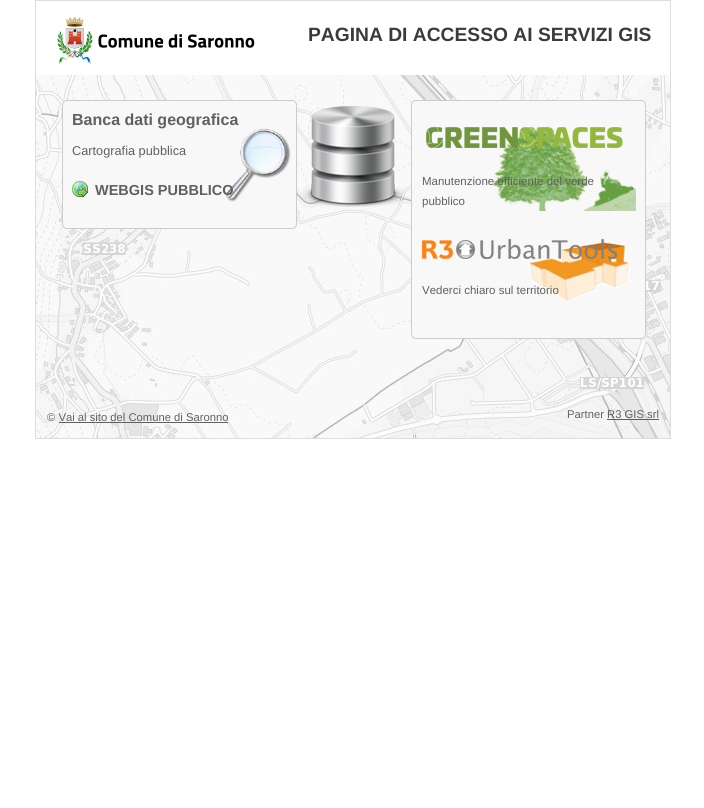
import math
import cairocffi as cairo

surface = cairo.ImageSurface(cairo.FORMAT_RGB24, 704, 808)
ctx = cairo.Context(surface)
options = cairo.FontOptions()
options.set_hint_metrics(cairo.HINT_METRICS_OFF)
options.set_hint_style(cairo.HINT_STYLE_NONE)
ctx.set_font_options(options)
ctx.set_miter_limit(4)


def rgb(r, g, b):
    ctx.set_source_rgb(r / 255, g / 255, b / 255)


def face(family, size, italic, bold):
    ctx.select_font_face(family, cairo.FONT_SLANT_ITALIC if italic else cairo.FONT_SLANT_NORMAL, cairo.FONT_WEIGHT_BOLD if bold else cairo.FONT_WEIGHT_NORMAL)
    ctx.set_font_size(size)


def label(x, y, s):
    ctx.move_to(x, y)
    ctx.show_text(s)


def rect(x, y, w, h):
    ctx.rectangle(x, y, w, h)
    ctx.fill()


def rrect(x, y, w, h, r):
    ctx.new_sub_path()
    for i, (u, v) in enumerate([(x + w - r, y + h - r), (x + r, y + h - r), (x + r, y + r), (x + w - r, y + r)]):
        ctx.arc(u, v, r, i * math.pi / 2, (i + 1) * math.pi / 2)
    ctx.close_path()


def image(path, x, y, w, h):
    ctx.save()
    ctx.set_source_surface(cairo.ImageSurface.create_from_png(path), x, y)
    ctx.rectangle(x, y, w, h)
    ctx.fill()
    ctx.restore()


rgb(255, 255, 255)
ctx.paint()
image('image0.png', 36, 75, 634, 363)
ctx.rectangle(35.5, 0.5, 635, 438)
rgb(221, 221, 221)
ctx.set_line_width(1)
ctx.stroke()
image('image1.png', 57, 17, 198, 47)
face('Liberation Sans', 19.25, 0, 1)
rgb(59, 59, 59)
label(308, 41, 'PAGINA DI ACCESSO AI SERVIZI GIS')
rgb(248, 248, 248)
rrect(62, 100, 235, 129, 5)
ctx.fill()
image('image2.png', 226, 128, 65, 74)
rrect(62.5, 100.5, 234, 128, 4.5)
rgb(204, 204, 204)
ctx.stroke()
face('Liberation Sans', 16, 0, 1)
rgb(96, 96, 96)
label(72, 125, 'Banca dati geografica')
face('Liberation Sans', 12.75, 0, 0)
label(72, 155, 'Cartografia pubblica')
image('image3.png', 72, 181, 16, 16)
face('Liberation Sans', 14.5, 0, 1)
label(95, 195, 'WEBGIS PUBBLICO')
image('image4.png', 302, 106, 102, 101)
rgb(248, 248, 248)
rrect(411.5, 100.5, 234, 238, 4.5)
ctx.fill_preserve()
rgb(204, 204, 204)
ctx.stroke()
image('image5.png', 492, 127, 144, 84)
image('image6.png', 426, 127, 197, 21)
face('Liberation Sans', 11.5, 0, 0)
rgb(96, 96, 96)
label(422, 185, 'Manutenzione efficiente del verde')
label(422, 205, 'pubblico')
image('image7.png', 528, 241, 102, 59)
image('image8.png', 422, 239, 195, 20)
label(422, 294, 'Vederci chiaro sul territorio')
face('Liberation Sans', 11.25, 0, 0)
label(47, 421, '© Vai al sito del Comune di Saronno')
rect(59, 422, 169, 1)
label(567, 418, 'Partner R3 GIS srl')
rect(607, 419, 52, 1)
surface.write_to_png('render.png')
